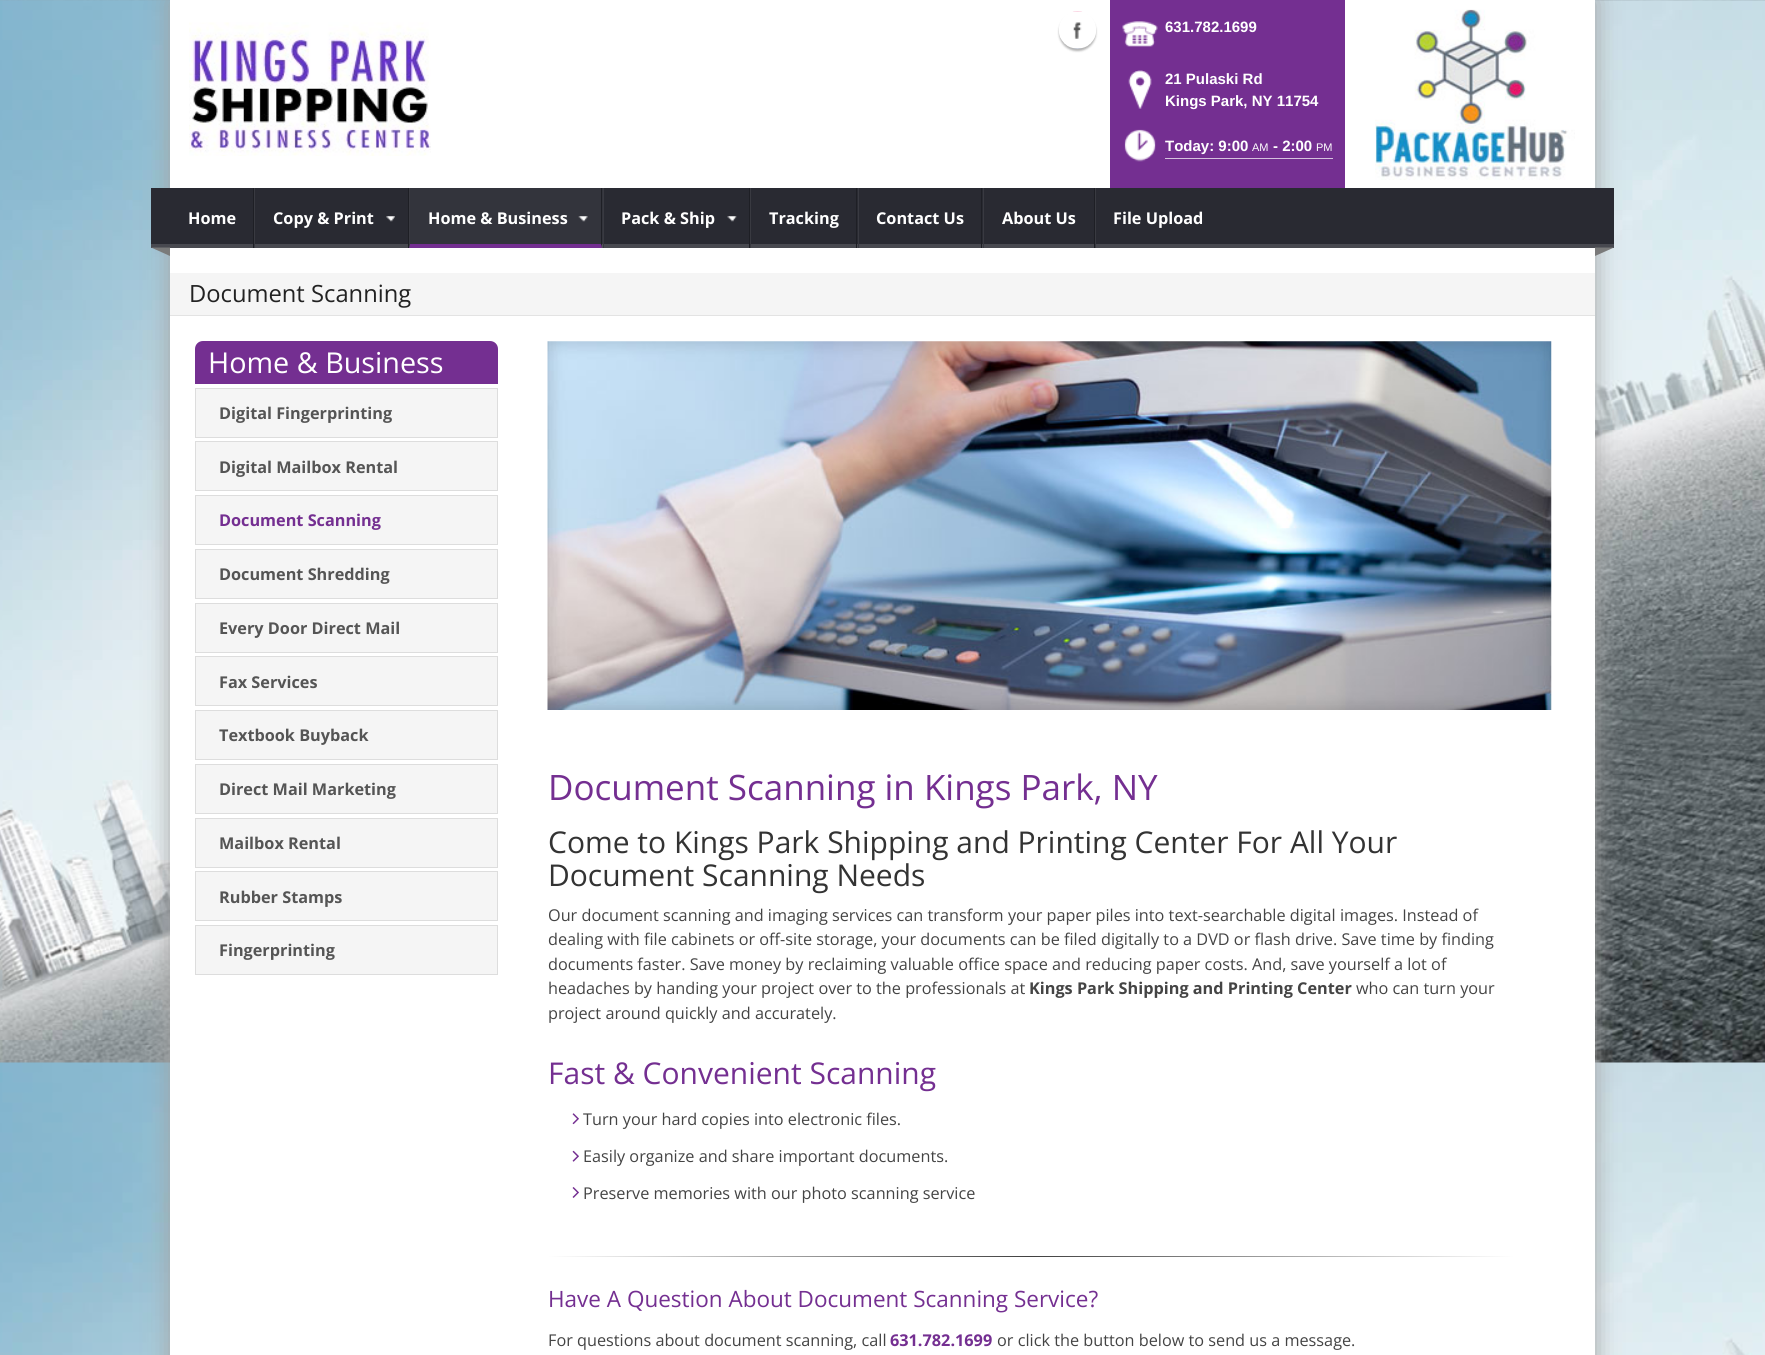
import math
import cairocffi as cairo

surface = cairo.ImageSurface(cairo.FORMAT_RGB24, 1765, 1355)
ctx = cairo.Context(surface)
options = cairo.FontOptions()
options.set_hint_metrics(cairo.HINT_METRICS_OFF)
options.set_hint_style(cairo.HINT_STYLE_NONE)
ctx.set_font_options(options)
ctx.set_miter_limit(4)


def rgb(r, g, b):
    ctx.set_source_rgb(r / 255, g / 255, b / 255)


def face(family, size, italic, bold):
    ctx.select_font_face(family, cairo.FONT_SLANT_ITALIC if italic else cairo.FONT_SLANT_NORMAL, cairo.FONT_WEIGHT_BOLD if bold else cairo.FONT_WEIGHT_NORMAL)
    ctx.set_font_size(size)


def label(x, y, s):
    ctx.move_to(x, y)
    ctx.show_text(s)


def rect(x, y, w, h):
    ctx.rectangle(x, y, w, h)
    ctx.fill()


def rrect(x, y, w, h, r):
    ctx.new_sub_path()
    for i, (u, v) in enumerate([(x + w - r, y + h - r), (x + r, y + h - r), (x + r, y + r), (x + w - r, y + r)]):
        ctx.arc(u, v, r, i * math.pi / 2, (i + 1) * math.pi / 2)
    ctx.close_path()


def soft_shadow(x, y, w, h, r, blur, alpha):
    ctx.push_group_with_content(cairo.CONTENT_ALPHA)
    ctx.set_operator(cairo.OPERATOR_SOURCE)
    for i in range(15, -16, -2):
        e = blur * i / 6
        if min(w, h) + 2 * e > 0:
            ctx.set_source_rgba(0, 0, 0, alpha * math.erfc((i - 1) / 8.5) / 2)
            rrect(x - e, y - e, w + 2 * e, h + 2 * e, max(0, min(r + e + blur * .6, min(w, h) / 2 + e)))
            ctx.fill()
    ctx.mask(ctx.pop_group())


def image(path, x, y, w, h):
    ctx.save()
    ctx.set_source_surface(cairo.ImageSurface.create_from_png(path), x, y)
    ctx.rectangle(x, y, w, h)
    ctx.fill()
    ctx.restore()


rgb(255, 255, 255)
ctx.paint()
image('image0.png', 0, 0, 1765, 1355)
rgb(163, 163, 163)
soft_shadow(170, 0, 1425, 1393, 0, 12.5, 1)
rgb(255, 255, 255)
rect(170, 0, 1425, 1355)
image('image1.png', 189, 22, 242, 134)
rgb(0, 0, 0)
soft_shadow(1059, 14, 37, 37, 18.5, 1, 0.3)
image('image2.png', 1059, 11, 37, 38)
rgb(116, 47, 145)
rect(1110, 0, 235, 188)
image('image3.png', 1122, 21, 36, 26)
face('Liberation Sans', 15, 0, 1)
rgb(255, 255, 255)
label(1165, 32, '631.782.1699')
image('image4.png', 1128, 70, 24, 39)
label(1165, 84, '21 Pulaski Rd')
label(1165, 106, 'Kings Park, NY 11754')
image('image5.png', 1124, 129, 32, 33)
rgb(213, 193, 222)
rect(1165, 158, 168, 1)
rgb(255, 255, 255)
label(1165, 151, 'Today: 9:00')
face('Liberation Sans', 11, 0, 0)
label(1252, 151, 'AM')
face('Liberation Sans', 15, 0, 1)
label(1273, 151, '- 2:00')
face('Liberation Sans', 11, 0, 0)
label(1316, 151, 'PM')
image('image6.png', 1375, 9, 200, 171)
rgb(41, 42, 50)
rect(151, 188, 1463, 56)
rgb(72, 73, 80)
rect(151, 244, 1463, 4)
rgb(30, 31, 37)
rect(253, 188, 1, 60)
face('Open Sans', 16.25, 0, 1)
rgb(255, 255, 255)
label(188, 224, 'Home')
rgb(30, 31, 37)
rect(408, 188, 1, 60)
rgb(57, 58, 65)
rect(254, 188, 1, 60)
rgb(255, 255, 255)
label(273, 224, 'Copy & Print')
image('image7.png', 386, 216, 9, 6)
ctx.set_source_rgba(1, 1, 1, 0.05)
rect(409, 188, 194, 60)
rgb(30, 31, 37)
ctx.new_path()
ctx.move_to(602, 188)
ctx.line_to(602, 248)
ctx.line_to(601, 244)
ctx.line_to(601, 188)
ctx.close_path()
ctx.fill()
rgb(116, 47, 145)
ctx.new_path()
ctx.move_to(602, 248)
ctx.line_to(409, 248)
ctx.line_to(410, 244)
ctx.line_to(601, 244)
ctx.close_path()
ctx.fill()
rgb(57, 58, 65)
ctx.new_path()
ctx.move_to(409, 248)
ctx.line_to(409, 188)
ctx.line_to(410, 188)
ctx.line_to(410, 244)
ctx.close_path()
ctx.fill()
rgb(255, 255, 255)
label(428, 224, 'Home & Business')
image('image8.png', 578, 216, 10, 6)
rgb(30, 31, 37)
rect(749, 188, 1, 60)
rgb(57, 58, 65)
rect(603, 188, 1, 60)
rgb(255, 255, 255)
label(621, 224, 'Pack & Ship')
image('image9.png', 727, 216, 10, 6)
rgb(30, 31, 37)
rect(856, 188, 1, 60)
rgb(57, 58, 65)
rect(750, 188, 1, 60)
rgb(255, 255, 255)
label(769, 224, 'Tracking')
rgb(30, 31, 37)
rect(981, 188, 1, 60)
rgb(57, 58, 65)
rect(858, 188, 1, 60)
rgb(255, 255, 255)
label(876, 224, 'Contact Us')
rgb(30, 31, 37)
rect(1094, 188, 1, 60)
rgb(57, 58, 65)
rect(983, 188, 1, 60)
rgb(255, 255, 255)
label(1002, 224, 'About Us')
rgb(57, 58, 65)
rect(1095, 188, 1, 60)
rgb(255, 255, 255)
label(1113, 224, 'File Upload')
rgb(122, 122, 122)
ctx.new_path()
ctx.move_to(170, 247.5)
ctx.line_to(170, 256)
ctx.line_to(151, 247.5)
ctx.close_path()
ctx.fill()
ctx.new_path()
ctx.move_to(1595, 247.5)
ctx.line_to(1614, 247.5)
ctx.line_to(1595, 256)
ctx.close_path()
ctx.fill()
rgb(245, 245, 245)
rect(170, 273, 1425, 42)
rgb(227, 227, 227)
rect(170, 315, 1425, 1)
face('Open Sans', 23.75, 0, 0)
rgb(34, 34, 34)
label(189, 302, 'Document Scanning')
rgb(116, 47, 145)
ctx.new_path()
ctx.move_to(203, 341)
ctx.line_to(490, 341)
ctx.curve_to(494.5, 341, 498, 344.5, 498, 349)
ctx.line_to(498, 384)
ctx.line_to(195, 384)
ctx.line_to(195, 349)
ctx.curve_to(195, 344.5, 198.5, 341, 203, 341)
ctx.close_path()
ctx.fill()
face('Open Sans', 28.75, 0, 0)
rgb(255, 255, 255)
label(208, 373, 'Home & Business')
rgb(245, 245, 245)
ctx.rectangle(195.5, 388.5, 302, 49)
ctx.fill_preserve()
rgb(221, 221, 221)
ctx.set_line_width(1)
ctx.stroke()
face('Open Sans', 16.25, 0, 1)
rgb(85, 85, 85)
label(219, 419, 'Digital Fingerprinting')
rgb(245, 245, 245)
ctx.rectangle(195.5, 441.5, 302, 49)
ctx.fill_preserve()
rgb(221, 221, 221)
ctx.stroke()
rgb(85, 85, 85)
label(219, 473, 'Digital Mailbox Rental')
rgb(245, 245, 245)
ctx.rectangle(195.5, 495.5, 302, 49)
ctx.fill_preserve()
rgb(221, 221, 221)
ctx.stroke()
rgb(116, 47, 145)
label(219, 526, 'Document Scanning')
rgb(245, 245, 245)
ctx.rectangle(195.5, 549.5, 302, 49)
ctx.fill_preserve()
rgb(221, 221, 221)
ctx.stroke()
rgb(85, 85, 85)
label(219, 580, 'Document Shredding')
rgb(245, 245, 245)
ctx.rectangle(195.5, 603.5, 302, 49)
ctx.fill_preserve()
rgb(221, 221, 221)
ctx.stroke()
rgb(85, 85, 85)
label(219, 634, 'Every Door Direct Mail')
rgb(245, 245, 245)
ctx.rectangle(195.5, 656.5, 302, 49)
ctx.fill_preserve()
rgb(221, 221, 221)
ctx.stroke()
rgb(85, 85, 85)
label(219, 688, 'Fax Services')
rgb(245, 245, 245)
ctx.rectangle(195.5, 710.5, 302, 49)
ctx.fill_preserve()
rgb(221, 221, 221)
ctx.stroke()
rgb(85, 85, 85)
label(219, 741, 'Textbook Buyback')
rgb(245, 245, 245)
ctx.rectangle(195.5, 764.5, 302, 49)
ctx.fill_preserve()
rgb(221, 221, 221)
ctx.stroke()
rgb(85, 85, 85)
label(219, 795, 'Direct Mail Marketing')
rgb(245, 245, 245)
ctx.rectangle(195.5, 818.5, 302, 49)
ctx.fill_preserve()
rgb(221, 221, 221)
ctx.stroke()
rgb(85, 85, 85)
label(219, 849, 'Mailbox Rental')
rgb(245, 245, 245)
ctx.rectangle(195.5, 871.5, 302, 49)
ctx.fill_preserve()
rgb(221, 221, 221)
ctx.stroke()
rgb(85, 85, 85)
label(219, 903, 'Rubber Stamps')
rgb(245, 245, 245)
ctx.rectangle(195.5, 925.5, 302, 49)
ctx.fill_preserve()
rgb(221, 221, 221)
ctx.stroke()
rgb(85, 85, 85)
label(219, 956, 'Fingerprinting')
image('image10.png', 547, 341, 1005, 369)
face('Open Sans', 35, 0, 0)
rgb(116, 47, 145)
label(548, 800, 'Document Scanning in Kings Park, NY')
face('Open Sans', 30, 0, 0)
rgb(51, 51, 51)
label(548, 853, 'Come to Kings Park Shipping and Printing Center For All Your')
label(548, 886, 'Document Scanning Needs')
face('Open Sans', 16.25, 0, 0)
rgb(68, 68, 68)
label(548, 921, 'Our document scanning and imaging services can transform your paper piles into text-searchable digital images. Instead of')
label(548, 945, 'dealing with file cabinets or off-site storage, your documents can be filed digitally to a DVD or flash drive. Save time by finding')
label(548, 970, 'documents faster. Save money by reclaiming valuable office space and reducing paper costs. And, save yourself a lot of')
label(548, 994, 'headaches by handing your project over to the professionals at')
face('Open Sans', 16.25, 0, 1)
label(1029, 994, 'Kings Park Shipping and Printing Center')
face('Open Sans', 16.25, 0, 0)
label(1356, 994, 'who can turn your')
label(548, 1019, 'project around quickly and accurately.')
face('Open Sans', 30, 0, 0)
rgb(116, 47, 145)
label(548, 1084, 'Fast & Convenient Scanning')
image('image11.png', 572, 1113, 7, 12)
face('Open Sans', 16.25, 0, 0)
rgb(68, 68, 68)
label(583, 1125, 'Turn your hard copies into electronic files.')
image('image12.png', 572, 1150, 7, 12)
label(583, 1162, 'Easily organize and share important documents.')
image('image13.png', 572, 1187, 7, 11)
label(583, 1199, 'Preserve memories with our photo scanning service')
gradient = cairo.LinearGradient(548, 1257, 1514, 1257)
gradient.add_color_stop_rgba(0, 1, 1, 1, 1)
gradient.add_color_stop_rgba(0.5, 0.251, 0.251, 0.251, 1)
gradient.add_color_stop_rgba(1, 1, 1, 1, 1)
ctx.set_source(gradient)
rect(548, 1256, 966, 1)
face('Open Sans', 22.5, 0, 0)
rgb(116, 47, 145)
label(548, 1307, 'Have A Question About Document Scanning Service?')
face('Open Sans', 16.25, 0, 0)
rgb(68, 68, 68)
label(548, 1346, 'For questions about document scanning, call')
face('Open Sans', 16.25, 0, 1)
rgb(116, 47, 145)
label(890, 1346, '631.782.1699')
face('Open Sans', 16.25, 0, 0)
rgb(68, 68, 68)
label(997, 1346, 'or click the button below to send us a message.')
surface.write_to_png('render.png')
